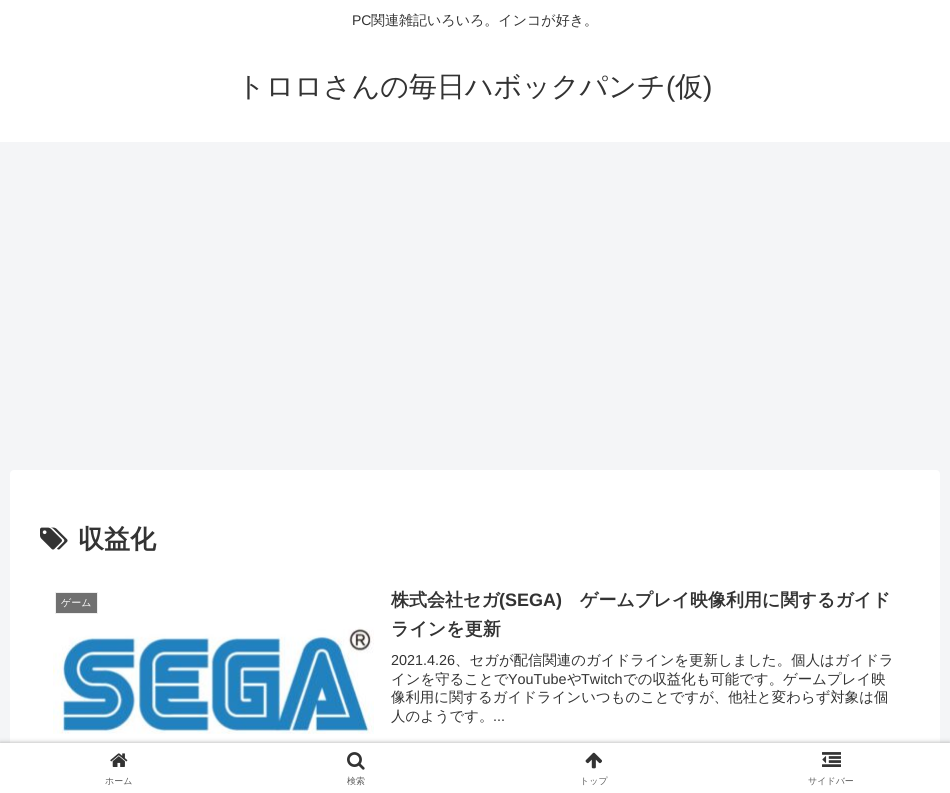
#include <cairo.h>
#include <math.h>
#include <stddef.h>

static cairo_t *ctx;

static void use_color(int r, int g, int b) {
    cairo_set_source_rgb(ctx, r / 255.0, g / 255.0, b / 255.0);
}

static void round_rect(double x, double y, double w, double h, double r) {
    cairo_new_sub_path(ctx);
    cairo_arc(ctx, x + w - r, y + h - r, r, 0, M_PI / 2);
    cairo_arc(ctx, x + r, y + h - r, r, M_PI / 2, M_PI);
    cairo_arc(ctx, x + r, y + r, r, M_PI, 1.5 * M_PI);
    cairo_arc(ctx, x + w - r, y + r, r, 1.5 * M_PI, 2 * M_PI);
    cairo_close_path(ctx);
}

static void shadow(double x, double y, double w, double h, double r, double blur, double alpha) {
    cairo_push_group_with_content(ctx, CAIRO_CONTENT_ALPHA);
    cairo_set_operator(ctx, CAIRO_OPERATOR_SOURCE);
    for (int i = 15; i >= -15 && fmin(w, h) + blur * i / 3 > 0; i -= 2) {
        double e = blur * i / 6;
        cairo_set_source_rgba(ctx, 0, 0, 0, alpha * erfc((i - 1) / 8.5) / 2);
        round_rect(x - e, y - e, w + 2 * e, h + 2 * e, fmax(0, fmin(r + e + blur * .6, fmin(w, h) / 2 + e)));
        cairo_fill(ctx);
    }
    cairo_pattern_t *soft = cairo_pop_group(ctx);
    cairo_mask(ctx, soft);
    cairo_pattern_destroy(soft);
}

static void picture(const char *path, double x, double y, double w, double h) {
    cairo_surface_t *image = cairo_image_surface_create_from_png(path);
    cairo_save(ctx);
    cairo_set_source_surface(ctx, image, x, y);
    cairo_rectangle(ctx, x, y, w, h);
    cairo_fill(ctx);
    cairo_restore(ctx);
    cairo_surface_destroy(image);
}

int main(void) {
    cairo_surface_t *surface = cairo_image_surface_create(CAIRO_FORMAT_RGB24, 950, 793);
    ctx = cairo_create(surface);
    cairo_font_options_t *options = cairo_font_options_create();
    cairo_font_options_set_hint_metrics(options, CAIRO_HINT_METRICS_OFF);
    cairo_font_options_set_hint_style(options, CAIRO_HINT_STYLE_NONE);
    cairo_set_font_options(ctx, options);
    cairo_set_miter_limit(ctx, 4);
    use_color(244, 245, 247);
    cairo_paint(ctx);
    use_color(255, 255, 255);
    cairo_rectangle(ctx, 0, 0, 950, 142);
    cairo_fill(ctx);
    cairo_select_font_face(ctx, "Liberation Sans", CAIRO_FONT_SLANT_NORMAL, CAIRO_FONT_WEIGHT_NORMAL);
    cairo_set_font_size(ctx, 14);
    use_color(51, 51, 51);
    cairo_move_to(ctx, 352, 25);
    cairo_show_text(ctx, "PC");
    cairo_select_font_face(ctx, "WenQuanYi Zen Hei Medium", CAIRO_FONT_SLANT_NORMAL, CAIRO_FONT_WEIGHT_NORMAL);
    cairo_move_to(ctx, 371, 25);
    cairo_show_text(ctx, "関連雑記いろいろ。インコが好き。");
    cairo_set_font_size(ctx, 28);
    cairo_move_to(ctx, 237, 96);
    cairo_show_text(ctx, "トロロさんの毎日ハボックパンチ");
    cairo_select_font_face(ctx, "Liberation Sans", CAIRO_FONT_SLANT_NORMAL, CAIRO_FONT_WEIGHT_NORMAL);
    cairo_move_to(ctx, 666, 96);
    cairo_show_text(ctx, "(");
    cairo_select_font_face(ctx, "WenQuanYi Zen Hei Medium", CAIRO_FONT_SLANT_NORMAL, CAIRO_FONT_WEIGHT_NORMAL);
    cairo_move_to(ctx, 675, 96);
    cairo_show_text(ctx, "仮");
    cairo_select_font_face(ctx, "Liberation Sans", CAIRO_FONT_SLANT_NORMAL, CAIRO_FONT_WEIGHT_NORMAL);
    cairo_move_to(ctx, 703, 96);
    cairo_show_text(ctx, ")");
    use_color(255, 255, 255);
    round_rect(10, 470, 930, 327, 4);
    cairo_fill(ctx);
    picture("img1.png", 40, 527, 28, 23);
    cairo_select_font_face(ctx, "WenQuanYi Zen Hei", CAIRO_FONT_SLANT_NORMAL, CAIRO_FONT_WEIGHT_BOLD);
    cairo_set_font_size(ctx, 26);
    use_color(51, 51, 51);
    cairo_move_to(ctx, 78, 548);
    cairo_show_text(ctx, "収益化");
    use_color(112, 112, 112);
    cairo_rectangle(ctx, 55.5, 592.5, 42, 21);
    cairo_fill_preserve(ctx);
    use_color(238, 238, 238);
    cairo_set_line_width(ctx, 1);
    cairo_stroke(ctx);
    cairo_select_font_face(ctx, "WenQuanYi Zen Hei Medium", CAIRO_FONT_SLANT_NORMAL, CAIRO_FONT_WEIGHT_NORMAL);
    cairo_set_font_size(ctx, 10);
    use_color(255, 255, 255);
    cairo_move_to(ctx, 61, 606);
    cairo_show_text(ctx, "ゲーム");
    picture("img2.png", 53, 627, 321, 107);
    cairo_select_font_face(ctx, "WenQuanYi Zen Hei", CAIRO_FONT_SLANT_NORMAL, CAIRO_FONT_WEIGHT_BOLD);
    cairo_set_font_size(ctx, 18);
    use_color(51, 51, 51);
    cairo_move_to(ctx, 391, 606);
    cairo_show_text(ctx, "株式会社セガ");
    cairo_select_font_face(ctx, "Liberation Sans", CAIRO_FONT_SLANT_NORMAL, CAIRO_FONT_WEIGHT_BOLD);
    cairo_move_to(ctx, 499, 606);
    cairo_show_text(ctx, "(SEGA)");
    cairo_select_font_face(ctx, "WenQuanYi Zen Hei", CAIRO_FONT_SLANT_NORMAL, CAIRO_FONT_WEIGHT_BOLD);
    cairo_move_to(ctx, 580, 606);
    cairo_show_text(ctx, "ゲームプレイ映像利用に関するガイド");
    cairo_move_to(ctx, 391, 635);
    cairo_show_text(ctx, "ラインを更新");
    cairo_select_font_face(ctx, "Liberation Sans", CAIRO_FONT_SLANT_NORMAL, CAIRO_FONT_WEIGHT_NORMAL);
    cairo_set_font_size(ctx, 14.4);
    cairo_move_to(ctx, 391, 665);
    cairo_show_text(ctx, "2021.4.26");
    cairo_select_font_face(ctx, "WenQuanYi Zen Hei Medium", CAIRO_FONT_SLANT_NORMAL, CAIRO_FONT_WEIGHT_NORMAL);
    cairo_move_to(ctx, 455, 665);
    cairo_show_text(ctx, "、セガが配信関連のガイドラインを更新しました。個人はガイドラ");
    cairo_move_to(ctx, 391, 684);
    cairo_show_text(ctx, "インを守ることで");
    cairo_select_font_face(ctx, "Liberation Sans", CAIRO_FONT_SLANT_NORMAL, CAIRO_FONT_WEIGHT_NORMAL);
    cairo_move_to(ctx, 508, 684);
    cairo_show_text(ctx, "YouTube");
    cairo_select_font_face(ctx, "WenQuanYi Zen Hei Medium", CAIRO_FONT_SLANT_NORMAL, CAIRO_FONT_WEIGHT_NORMAL);
    cairo_move_to(ctx, 567, 684);
    cairo_show_text(ctx, "や");
    cairo_select_font_face(ctx, "Liberation Sans", CAIRO_FONT_SLANT_NORMAL, CAIRO_FONT_WEIGHT_NORMAL);
    cairo_move_to(ctx, 581, 684);
    cairo_show_text(ctx, "Twitch");
    cairo_select_font_face(ctx, "WenQuanYi Zen Hei Medium", CAIRO_FONT_SLANT_NORMAL, CAIRO_FONT_WEIGHT_NORMAL);
    cairo_move_to(ctx, 623, 684);
    cairo_show_text(ctx, "での収益化も可能です。ゲームプレイ映");
    cairo_move_to(ctx, 391, 702);
    cairo_show_text(ctx, "像利用に関するガイドラインいつものことですが、他社と変わらず対象は個");
    cairo_move_to(ctx, 391, 721);
    cairo_show_text(ctx, "人のようです。");
    cairo_select_font_face(ctx, "Liberation Sans", CAIRO_FONT_SLANT_NORMAL, CAIRO_FONT_WEIGHT_NORMAL);
    cairo_move_to(ctx, 493, 721);
    cairo_show_text(ctx, "...");
    use_color(169, 169, 169);
    shadow(0, 743, 950, 50, 0, 2.5, 1);
    use_color(255, 255, 255);
    cairo_rectangle(ctx, 0, 743, 950, 50);
    cairo_fill(ctx);
    picture("img3.png", 110, 753, 18, 14);
    cairo_select_font_face(ctx, "WenQuanYi Zen Hei Medium", CAIRO_FONT_SLANT_NORMAL, CAIRO_FONT_WEIGHT_NORMAL);
    cairo_set_font_size(ctx, 9);
    use_color(92, 92, 92);
    cairo_move_to(ctx, 105, 784);
    cairo_show_text(ctx, "ホーム");
    picture("img4.png", 347, 752, 18, 18);
    cairo_move_to(ctx, 347, 784);
    cairo_show_text(ctx, "検索");
    picture("img5.png", 585, 752, 17, 17);
    cairo_move_to(ctx, 580, 784);
    cairo_show_text(ctx, "トップ");
    picture("img6.png", 822, 752, 19, 15);
    cairo_move_to(ctx, 808, 784);
    cairo_show_text(ctx, "サイドバー");
    cairo_surface_write_to_png(surface, "result.png");
    cairo_font_options_destroy(options);
    cairo_destroy(ctx);
    cairo_surface_destroy(surface);
    return 0;
}
